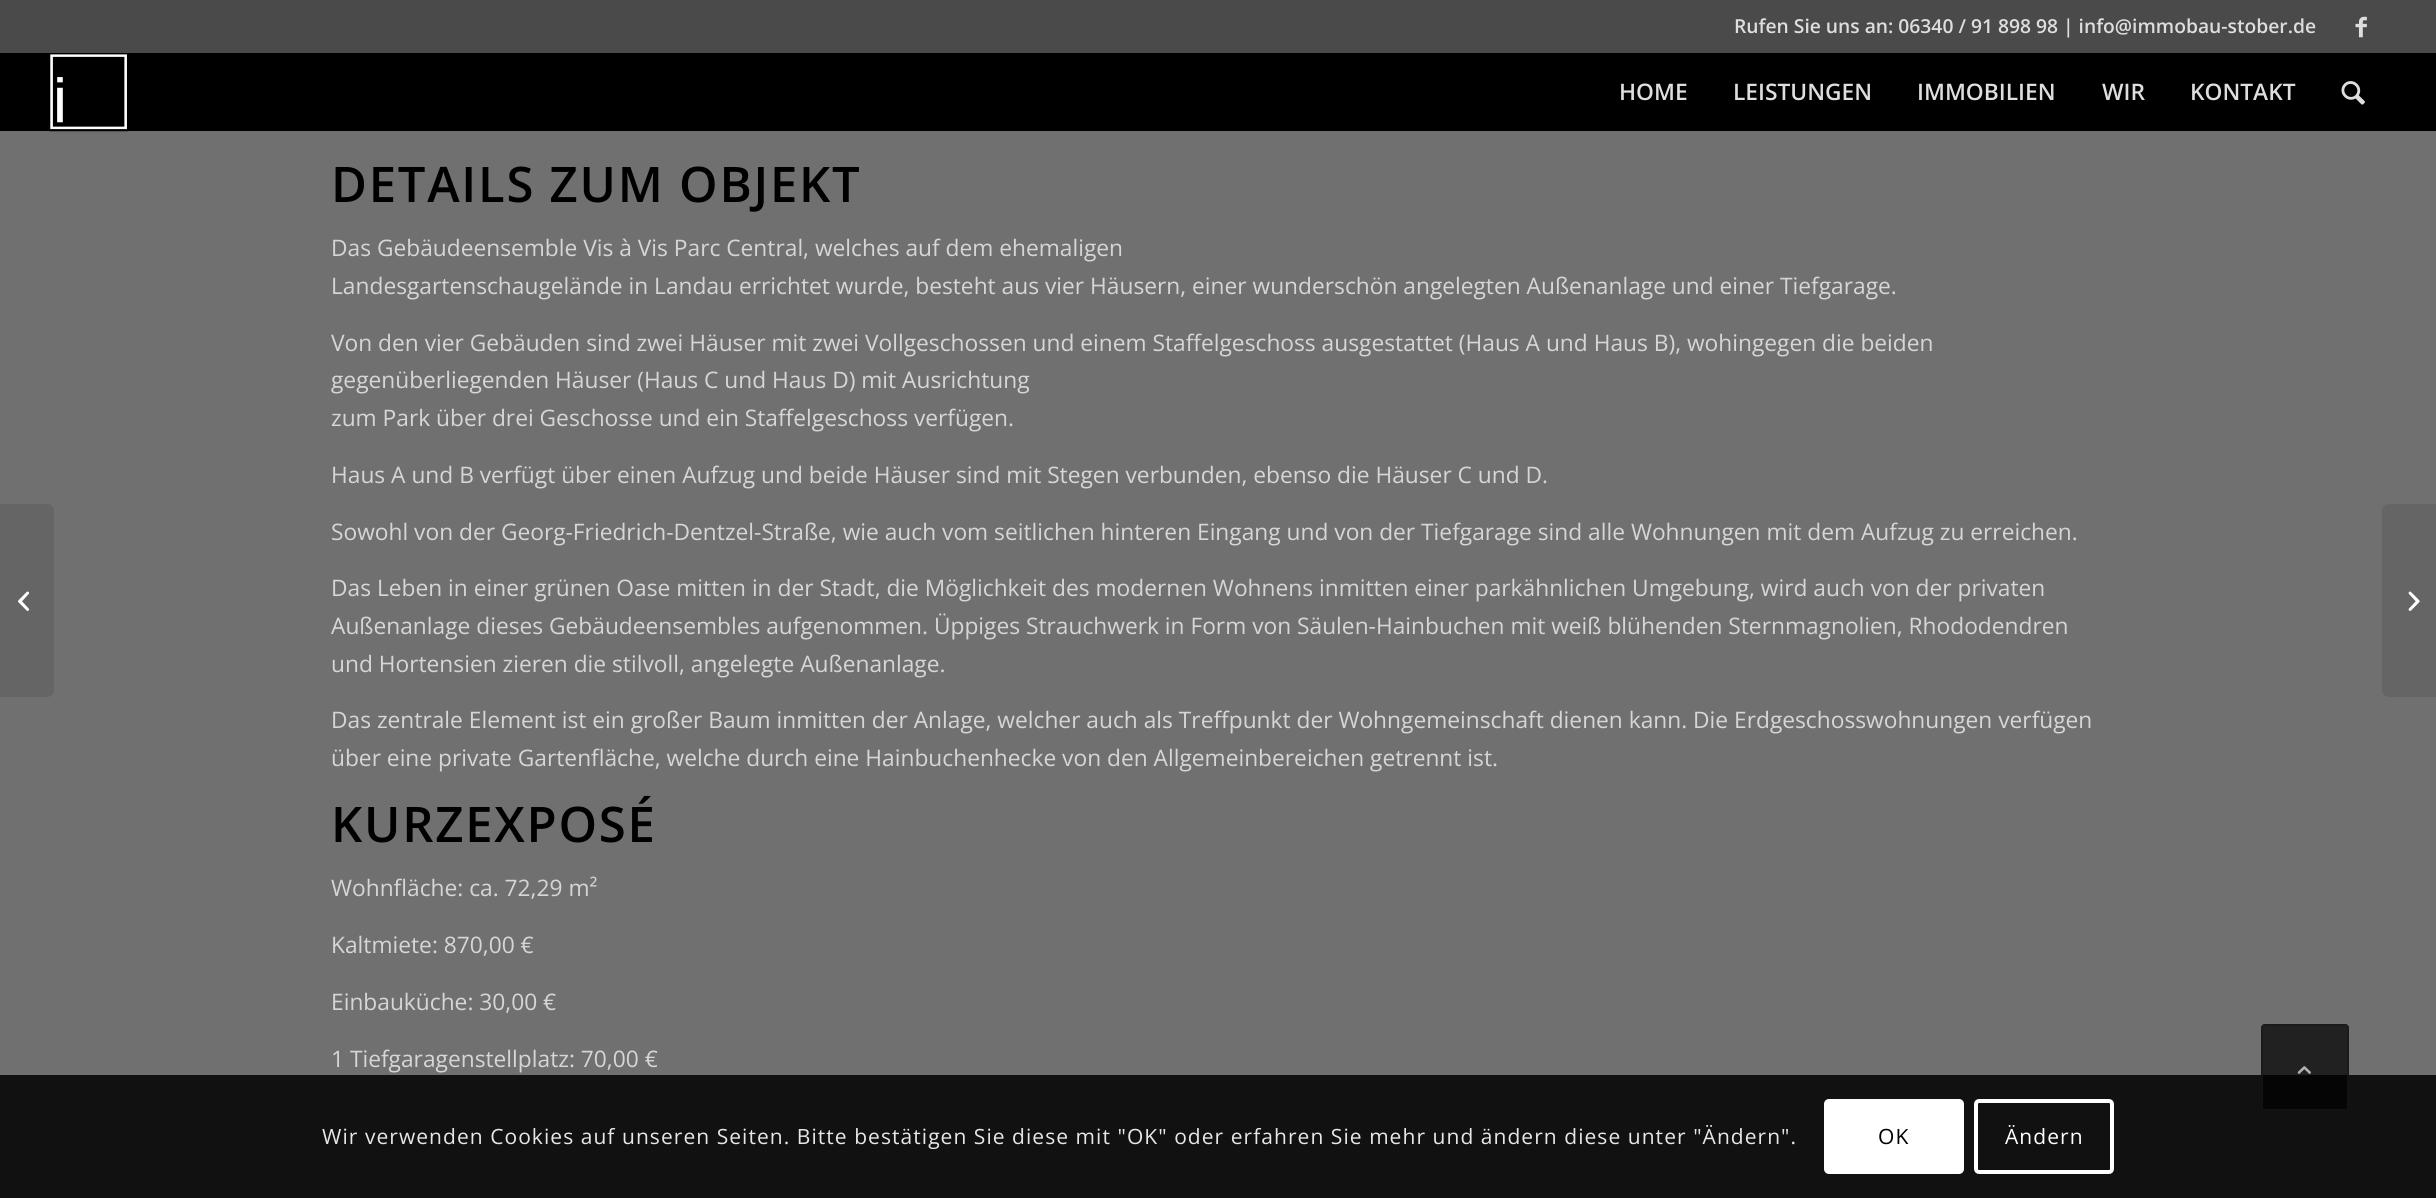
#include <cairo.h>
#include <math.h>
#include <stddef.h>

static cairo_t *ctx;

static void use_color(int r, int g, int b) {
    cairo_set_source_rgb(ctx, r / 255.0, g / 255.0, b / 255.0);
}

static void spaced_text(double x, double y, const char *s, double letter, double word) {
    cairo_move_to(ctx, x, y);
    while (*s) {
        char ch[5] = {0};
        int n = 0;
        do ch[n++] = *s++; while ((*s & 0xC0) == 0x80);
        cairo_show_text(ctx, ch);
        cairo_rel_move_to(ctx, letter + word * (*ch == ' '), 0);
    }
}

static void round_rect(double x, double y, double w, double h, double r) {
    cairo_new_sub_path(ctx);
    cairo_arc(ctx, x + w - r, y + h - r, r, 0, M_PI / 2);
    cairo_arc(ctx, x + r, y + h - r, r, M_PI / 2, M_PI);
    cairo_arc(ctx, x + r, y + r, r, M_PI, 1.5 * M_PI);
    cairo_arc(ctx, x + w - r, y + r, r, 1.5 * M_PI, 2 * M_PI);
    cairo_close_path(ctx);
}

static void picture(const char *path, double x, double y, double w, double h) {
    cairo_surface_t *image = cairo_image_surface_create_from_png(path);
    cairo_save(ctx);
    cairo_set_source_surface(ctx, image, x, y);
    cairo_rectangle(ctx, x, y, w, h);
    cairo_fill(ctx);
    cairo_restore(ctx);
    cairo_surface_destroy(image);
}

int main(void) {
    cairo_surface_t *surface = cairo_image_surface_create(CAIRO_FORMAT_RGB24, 2436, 1198);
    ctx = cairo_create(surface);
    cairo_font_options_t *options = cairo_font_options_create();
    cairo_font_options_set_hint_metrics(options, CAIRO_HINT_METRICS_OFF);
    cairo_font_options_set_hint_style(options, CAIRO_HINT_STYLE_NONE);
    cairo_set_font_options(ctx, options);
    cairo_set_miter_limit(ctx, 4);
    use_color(112, 112, 112);
    cairo_paint(ctx);
    use_color(74, 74, 74);
    cairo_rectangle(ctx, 0, 0, 2436, 53);
    cairo_fill(ctx);
    cairo_select_font_face(ctx, "Open Sans SemiBold", CAIRO_FONT_SLANT_NORMAL, CAIRO_FONT_WEIGHT_NORMAL);
    cairo_set_font_size(ctx, 19.25);
    use_color(222, 222, 222);
    cairo_move_to(ctx, 1734, 33);
    cairo_show_text(ctx, "Rufen Sie uns an: 06340 / 91 898 98 | info@immobau-stober.de");
    picture("img1.png", 2355, 16, 12, 22);
    use_color(0, 0, 0);
    cairo_rectangle(ctx, 0, 53, 2436, 78);
    cairo_fill(ctx);
    picture("img2.png", 49, 54, 79, 78);
    cairo_set_font_size(ctx, 22.75);
    use_color(222, 222, 222);
    cairo_move_to(ctx, 1619, 100);
    cairo_show_text(ctx, "HOME");
    cairo_move_to(ctx, 1733, 100);
    cairo_show_text(ctx, "LEISTUNGEN");
    cairo_move_to(ctx, 1917, 100);
    cairo_show_text(ctx, "IMMOBILIEN");
    cairo_move_to(ctx, 2102, 100);
    cairo_show_text(ctx, "WIR");
    cairo_move_to(ctx, 2190, 100);
    cairo_show_text(ctx, "KONTAKT");
    picture("img3.png", 2341, 81, 24, 24);
    use_color(101, 101, 101);
    cairo_new_path(ctx);
    cairo_move_to(ctx, 0, 504);
    cairo_line_to(ctx, 47, 504);
    cairo_curve_to(ctx, 51, 504, 54, 507, 54, 511);
    cairo_line_to(ctx, 54, 690);
    cairo_curve_to(ctx, 54, 694, 51, 697, 47, 697);
    cairo_line_to(ctx, 0, 697);
    cairo_close_path(ctx);
    cairo_fill(ctx);
    picture("img4.png", 18, 591, 12, 20);
    use_color(17, 17, 17);
    cairo_rectangle(ctx, 0, 1075, 2436, 123);
    cairo_fill(ctx);
    cairo_set_font_size(ctx, 49);
    use_color(0, 0, 0);
    spaced_text(331, 202, "DETAILS ZUM OBJEKT", 1.75, 0);
    cairo_select_font_face(ctx, "Open Sans", CAIRO_FONT_SLANT_NORMAL, CAIRO_FONT_WEIGHT_NORMAL);
    cairo_set_font_size(ctx, 22.75);
    use_color(214, 214, 214);
    cairo_move_to(ctx, 331, 256);
    cairo_show_text(ctx, "Das Gebäudeensemble Vis à Vis Parc Central, welches auf dem ehemaligen");
    cairo_move_to(ctx, 331, 294);
    cairo_show_text(ctx, "Landesgartenschaugelände in Landau errichtet wurde, besteht aus vier Häusern, einer wunderschön angelegten Außenanlage und einer Tiefgarage.");
    cairo_move_to(ctx, 331, 351);
    cairo_show_text(ctx, "Von den vier Gebäuden sind zwei Häuser mit zwei Vollgeschossen und einem Staffelgeschoss ausgestattet (Haus A und Haus B), wohingegen die beiden");
    cairo_move_to(ctx, 331, 388);
    cairo_show_text(ctx, "gegenüberliegenden Häuser (Haus C und Haus D) mit Ausrichtung");
    cairo_move_to(ctx, 331, 426);
    cairo_show_text(ctx, "zum Park über drei Geschosse und ein Staffelgeschoss verfügen.");
    cairo_move_to(ctx, 331, 483);
    cairo_show_text(ctx, "Haus A und B verfügt über einen Aufzug und beide Häuser sind mit Stegen verbunden, ebenso die Häuser C und D.");
    cairo_move_to(ctx, 331, 540);
    cairo_show_text(ctx, "Sowohl von der Georg-Friedrich-Dentzel-Straße, wie auch vom seitlichen hinteren Eingang und von der Tiefgarage sind alle Wohnungen mit dem Aufzug zu erreichen.");
    cairo_move_to(ctx, 331, 596);
    cairo_show_text(ctx, "Das Leben in einer grünen Oase mitten in der Stadt, die Möglichkeit des modernen Wohnens inmitten einer parkähnlichen Umgebung, wird auch von der privaten");
    cairo_move_to(ctx, 331, 634);
    cairo_show_text(ctx, "Außenanlage dieses Gebäudeensembles aufgenommen. Üppiges Strauchwerk in Form von Säulen-Hainbuchen mit weiß blühenden Sternmagnolien, Rhododendren");
    cairo_move_to(ctx, 331, 672);
    cairo_show_text(ctx, "und Hortensien zieren die stilvoll, angelegte Außenanlage.");
    cairo_move_to(ctx, 331, 728);
    cairo_show_text(ctx, "Das zentrale Element ist ein großer Baum inmitten der Anlage, welcher auch als Treffpunkt der Wohngemeinschaft dienen kann. Die Erdgeschosswohnungen verfügen");
    cairo_move_to(ctx, 331, 766);
    cairo_show_text(ctx, "über eine private Gartenfläche, welche durch eine Hainbuchenhecke von den Allgemeinbereichen getrennt ist.");
    cairo_select_font_face(ctx, "Open Sans SemiBold", CAIRO_FONT_SLANT_NORMAL, CAIRO_FONT_WEIGHT_NORMAL);
    cairo_set_font_size(ctx, 49);
    use_color(0, 0, 0);
    spaced_text(331, 842, "KURZEXPOSÉ", 1.75, 0);
    cairo_select_font_face(ctx, "Open Sans", CAIRO_FONT_SLANT_NORMAL, CAIRO_FONT_WEIGHT_NORMAL);
    cairo_set_font_size(ctx, 22.75);
    use_color(214, 214, 214);
    cairo_move_to(ctx, 331, 896);
    cairo_show_text(ctx, "Wohnfläche: ca. 72,29 m²");
    cairo_move_to(ctx, 331, 953);
    cairo_show_text(ctx, "Kaltmiete: 870,00 €");
    cairo_move_to(ctx, 331, 1010);
    cairo_show_text(ctx, "Einbauküche: 30,00 €");
    cairo_move_to(ctx, 331, 1067);
    cairo_show_text(ctx, "1 Tiefgaragenstellplatz: 70,00 €");
    use_color(101, 101, 101);
    cairo_new_path(ctx);
    cairo_move_to(ctx, 2389, 504);
    cairo_line_to(ctx, 2436, 504);
    cairo_line_to(ctx, 2436, 697);
    cairo_line_to(ctx, 2389, 697);
    cairo_curve_to(ctx, 2385, 697, 2382, 694, 2382, 690);
    cairo_line_to(ctx, 2382, 511);
    cairo_curve_to(ctx, 2382, 507, 2385, 504, 2389, 504);
    cairo_close_path(ctx);
    cairo_fill(ctx);
    picture("img5.png", 2408, 591, 12, 20);
    cairo_set_source_rgba(ctx, 0, 0, 0, 0.7);
    round_rect(2261, 1024, 88, 87, 4);
    cairo_fill(ctx);
    round_rect(2262, 1025, 86, 85, 3);
    cairo_set_source_rgba(ctx, 0.098, 0.098, 0.098, 0.7);
    cairo_stroke(ctx);
    picture("img6.png", 2297, 1066, 14, 8);
    cairo_set_font_size(ctx, 21);
    use_color(231, 231, 231);
    spaced_text(322, 1144, "Wir verwenden Cookies auf unseren Seiten. Bitte bestätigen Sie diese mit \"OK\" oder erfahren Sie mehr und ändern diese unter \"Ändern\".", 1.05, 0);
    use_color(255, 255, 255);
    round_rect(1824, 1099, 140, 75, 5);
    cairo_fill(ctx);
    use_color(0, 0, 0);
    spaced_text(1878, 1144, "OK", 1.05, 0);
    round_rect(1976, 1101, 136, 71, 3);
    use_color(255, 255, 255);
    cairo_set_line_width(ctx, 4);
    cairo_stroke(ctx);
    spaced_text(2005, 1144, "Ändern", 1.05, 0);
    cairo_surface_write_to_png(surface, "result.png");
    cairo_font_options_destroy(options);
    cairo_destroy(ctx);
    cairo_surface_destroy(surface);
    return 0;
}
